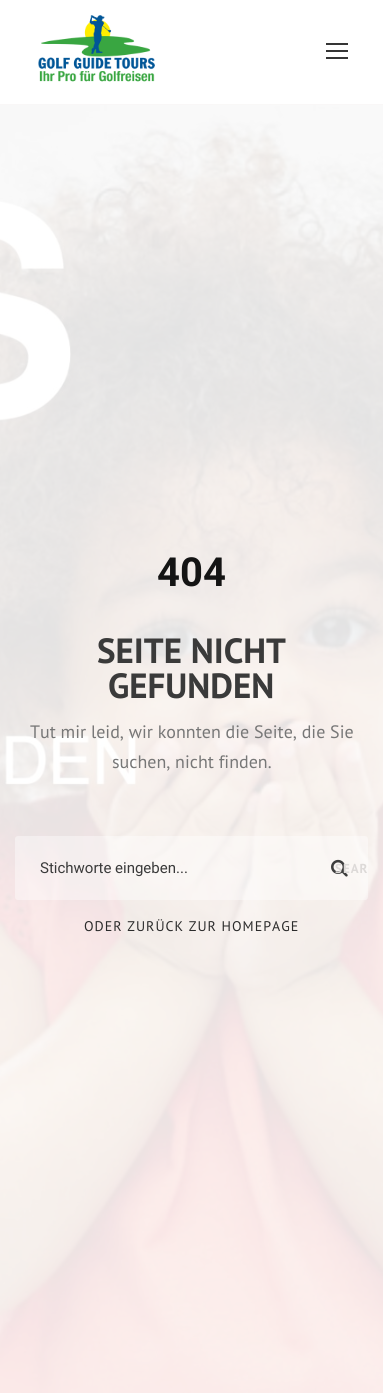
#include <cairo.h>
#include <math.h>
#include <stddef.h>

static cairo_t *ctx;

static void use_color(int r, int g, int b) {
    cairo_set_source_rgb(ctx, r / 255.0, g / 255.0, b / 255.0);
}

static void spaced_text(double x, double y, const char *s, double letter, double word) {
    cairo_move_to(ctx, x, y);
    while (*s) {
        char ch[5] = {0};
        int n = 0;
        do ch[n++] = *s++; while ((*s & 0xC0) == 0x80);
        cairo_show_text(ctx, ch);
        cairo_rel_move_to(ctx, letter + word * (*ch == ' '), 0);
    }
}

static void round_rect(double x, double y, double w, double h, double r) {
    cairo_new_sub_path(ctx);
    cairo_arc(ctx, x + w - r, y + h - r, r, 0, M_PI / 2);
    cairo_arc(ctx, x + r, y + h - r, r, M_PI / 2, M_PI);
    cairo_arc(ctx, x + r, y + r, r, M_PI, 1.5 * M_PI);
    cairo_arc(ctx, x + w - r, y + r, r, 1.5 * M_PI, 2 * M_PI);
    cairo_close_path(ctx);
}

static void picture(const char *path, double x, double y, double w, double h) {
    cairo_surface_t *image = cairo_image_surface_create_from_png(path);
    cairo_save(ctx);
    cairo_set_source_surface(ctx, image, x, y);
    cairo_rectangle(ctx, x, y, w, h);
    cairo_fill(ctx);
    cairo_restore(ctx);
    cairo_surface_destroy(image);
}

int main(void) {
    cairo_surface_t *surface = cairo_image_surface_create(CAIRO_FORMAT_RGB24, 383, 1393);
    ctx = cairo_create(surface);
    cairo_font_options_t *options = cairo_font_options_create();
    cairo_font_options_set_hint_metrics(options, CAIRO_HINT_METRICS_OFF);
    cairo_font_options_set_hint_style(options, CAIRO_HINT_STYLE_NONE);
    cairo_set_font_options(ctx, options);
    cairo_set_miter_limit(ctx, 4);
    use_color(255, 255, 255);
    cairo_paint(ctx);
    picture("img1.png", 38, 15, 117, 67);
    use_color(53, 53, 53);
    cairo_rectangle(ctx, 326, 43, 22, 2);
    cairo_fill(ctx);
    cairo_rectangle(ctx, 326, 50, 22, 2);
    cairo_fill(ctx);
    cairo_rectangle(ctx, 326, 57, 22, 2);
    cairo_fill(ctx);
    picture("img2.png", 0, 104, 383, 1289);
    cairo_select_font_face(ctx, "Roboto", CAIRO_FONT_SLANT_NORMAL, CAIRO_FONT_WEIGHT_BOLD);
    cairo_set_font_size(ctx, 40);
    use_color(20, 20, 20);
    cairo_move_to(ctx, 157, 586);
    cairo_show_text(ctx, "404");
    cairo_select_font_face(ctx, "PT Sans", CAIRO_FONT_SLANT_NORMAL, CAIRO_FONT_WEIGHT_BOLD);
    cairo_set_font_size(ctx, 35);
    use_color(58, 58, 58);
    cairo_move_to(ctx, 97, 663);
    cairo_show_text(ctx, "SEITE NICHT");
    cairo_move_to(ctx, 108, 698);
    cairo_show_text(ctx, "GEFUNDEN");
    cairo_select_font_face(ctx, "PT Sans", CAIRO_FONT_SLANT_NORMAL, CAIRO_FONT_WEIGHT_NORMAL);
    cairo_set_font_size(ctx, 18);
    use_color(119, 119, 119);
    cairo_move_to(ctx, 30, 738);
    cairo_show_text(ctx, "Tut mir leid, wir konnten die Seite, die Sie");
    cairo_move_to(ctx, 112, 768);
    cairo_show_text(ctx, "suchen, nicht finden.");
    cairo_set_source_rgba(ctx, 1, 1, 1, 0.4);
    round_rect(15, 836, 353, 64, 3);
    cairo_fill(ctx);
    cairo_select_font_face(ctx, "Roboto", CAIRO_FONT_SLANT_NORMAL, CAIRO_FONT_WEIGHT_NORMAL);
    cairo_set_font_size(ctx, 15);
    use_color(58, 58, 58);
    cairo_move_to(ctx, 40, 873);
    cairo_show_text(ctx, "Stichworte eingeben...");
    picture("img3.png", 331, 859, 17, 18);
    cairo_select_font_face(ctx, "PT Sans", CAIRO_FONT_SLANT_NORMAL, CAIRO_FONT_WEIGHT_BOLD);
    cairo_set_font_size(ctx, 13);
    use_color(221, 218, 216);
    spaced_text(335, 873, "SEAR", 1, 0);
    cairo_select_font_face(ctx, "PT Sans", CAIRO_FONT_SLANT_NORMAL, CAIRO_FONT_WEIGHT_NORMAL);
    cairo_set_font_size(ctx, 14);
    use_color(43, 43, 43);
    spaced_text(84, 931, "ODER ZURÜCK ZUR HOMEPAGE", 1, 0);
    cairo_surface_write_to_png(surface, "result.png");
    cairo_font_options_destroy(options);
    cairo_destroy(ctx);
    cairo_surface_destroy(surface);
    return 0;
}
